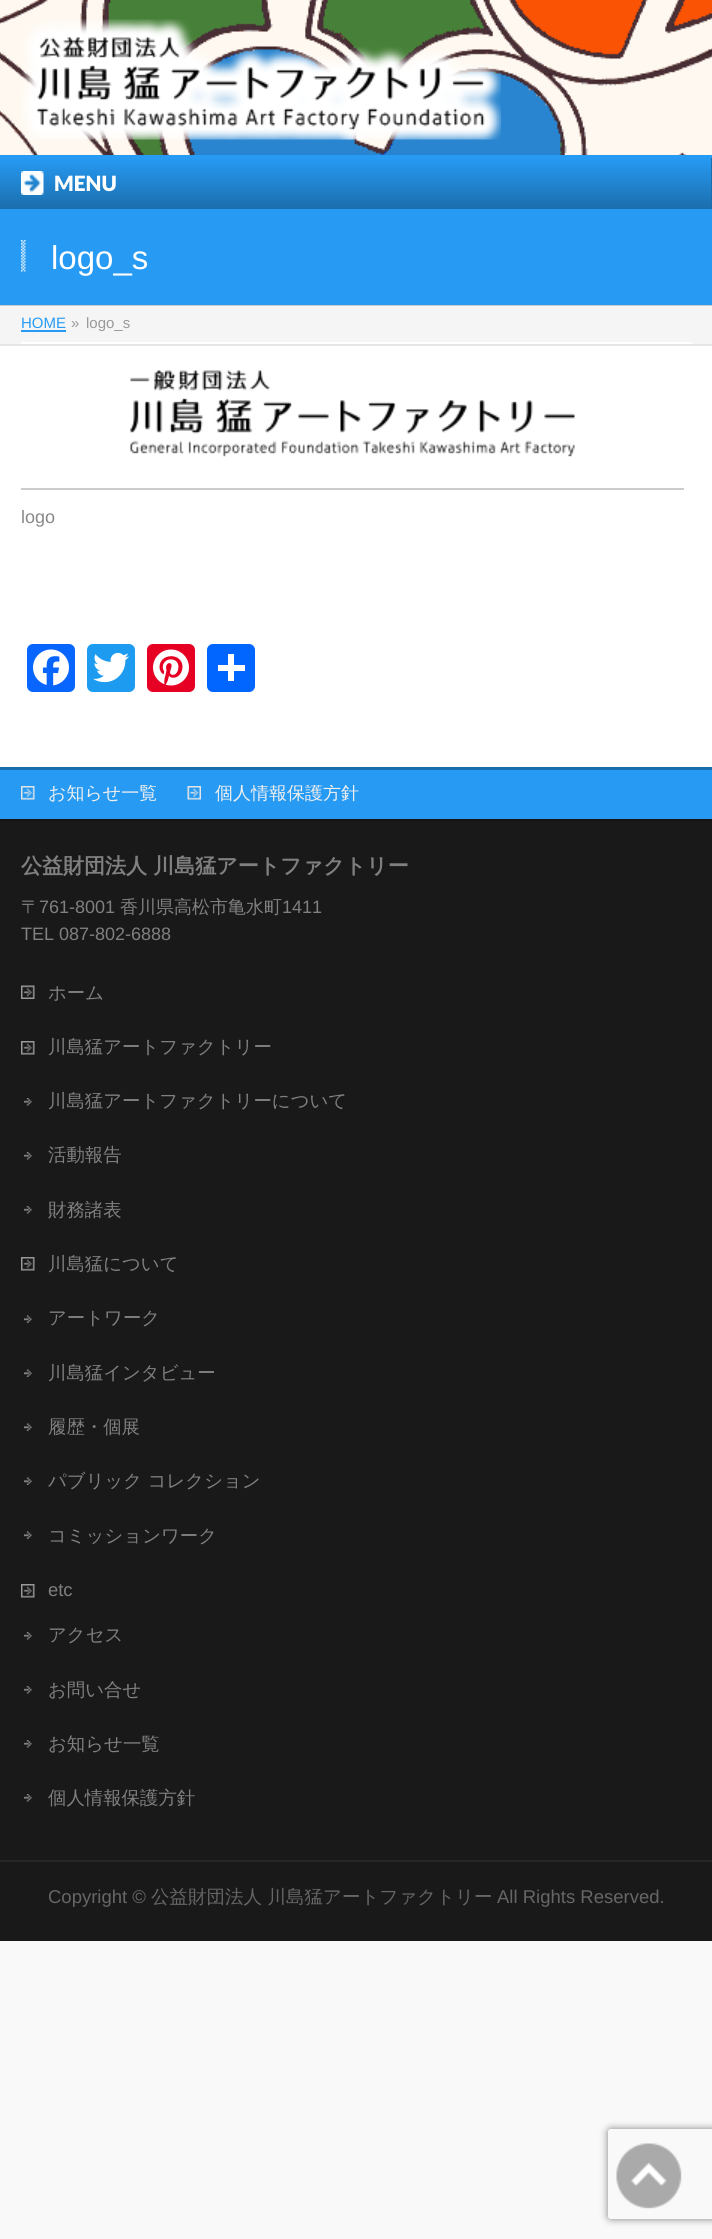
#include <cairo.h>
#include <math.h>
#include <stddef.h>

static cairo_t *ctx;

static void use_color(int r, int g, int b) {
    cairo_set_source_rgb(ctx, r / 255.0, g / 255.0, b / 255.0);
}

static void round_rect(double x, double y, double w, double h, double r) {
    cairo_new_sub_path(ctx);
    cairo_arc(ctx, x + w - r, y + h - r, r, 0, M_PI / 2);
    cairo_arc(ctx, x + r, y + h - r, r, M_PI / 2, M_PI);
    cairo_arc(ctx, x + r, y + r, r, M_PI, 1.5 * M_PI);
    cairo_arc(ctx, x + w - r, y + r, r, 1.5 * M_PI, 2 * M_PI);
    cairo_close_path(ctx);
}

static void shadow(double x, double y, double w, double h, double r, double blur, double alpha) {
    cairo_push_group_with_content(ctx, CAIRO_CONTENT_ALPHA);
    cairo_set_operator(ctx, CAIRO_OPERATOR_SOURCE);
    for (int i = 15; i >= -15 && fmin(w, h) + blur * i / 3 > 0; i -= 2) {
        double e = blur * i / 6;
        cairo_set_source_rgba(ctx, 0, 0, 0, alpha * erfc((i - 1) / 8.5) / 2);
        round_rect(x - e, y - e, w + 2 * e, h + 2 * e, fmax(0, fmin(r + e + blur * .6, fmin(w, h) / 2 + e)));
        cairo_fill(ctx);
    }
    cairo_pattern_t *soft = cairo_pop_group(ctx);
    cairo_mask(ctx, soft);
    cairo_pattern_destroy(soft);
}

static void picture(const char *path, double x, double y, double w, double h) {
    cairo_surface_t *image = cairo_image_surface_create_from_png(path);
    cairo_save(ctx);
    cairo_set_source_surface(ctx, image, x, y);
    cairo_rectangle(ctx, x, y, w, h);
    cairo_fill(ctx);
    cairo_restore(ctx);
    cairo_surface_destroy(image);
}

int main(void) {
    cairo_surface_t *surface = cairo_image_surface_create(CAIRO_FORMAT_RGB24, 712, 2239);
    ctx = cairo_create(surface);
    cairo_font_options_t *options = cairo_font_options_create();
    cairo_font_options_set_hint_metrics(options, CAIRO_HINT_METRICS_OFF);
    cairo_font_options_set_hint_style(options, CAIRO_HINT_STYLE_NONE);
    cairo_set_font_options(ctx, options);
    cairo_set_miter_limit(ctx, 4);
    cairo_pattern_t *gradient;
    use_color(249, 249, 249);
    cairo_paint(ctx);
    picture("img1.png", 0, 0, 712, 155);
    picture("img2.png", 21, 19, 480, 121);
    use_color(39, 155, 244);
    cairo_rectangle(ctx, 0, 155, 712, 3);
    cairo_fill(ctx);
    gradient = cairo_pattern_create_linear(356, 157, 356, 209);
    cairo_pattern_add_color_stop_rgba(gradient, 0, 0.153, 0.608, 0.957, 1);
    cairo_pattern_add_color_stop_rgba(gradient, 1, 0.106, 0.431, 0.678, 1);
    cairo_set_source(ctx, gradient);
    cairo_pattern_destroy(gradient);
    cairo_rectangle(ctx, 0, 158, 711, 51);
    cairo_fill(ctx);
    use_color(27, 110, 173);
    cairo_rectangle(ctx, 711, 158, 1, 51);
    cairo_fill(ctx);
    picture("img3.png", 21, 171, 23, 24);
    cairo_select_font_face(ctx, "Lato Black", CAIRO_FONT_SLANT_NORMAL, CAIRO_FONT_WEIGHT_NORMAL);
    cairo_set_font_size(ctx, 21);
    use_color(255, 255, 255);
    cairo_move_to(ctx, 54, 191);
    cairo_show_text(ctx, "MENU");
    use_color(39, 155, 244);
    cairo_rectangle(ctx, 0, 209, 712, 96);
    cairo_fill(ctx);
    use_color(204, 204, 204);
    cairo_rectangle(ctx, 0, 305, 712, 1);
    cairo_fill(ctx);
    picture("img4.png", 21, 240, 5, 32);
    cairo_select_font_face(ctx, "Liberation Sans", CAIRO_FONT_SLANT_NORMAL, CAIRO_FONT_WEIGHT_NORMAL);
    cairo_set_font_size(ctx, 33);
    use_color(255, 255, 255);
    cairo_move_to(ctx, 51, 269);
    cairo_show_text(ctx, "logo_s");
    use_color(245, 245, 245);
    cairo_rectangle(ctx, 0, 306, 712, 38);
    cairo_fill(ctx);
    use_color(229, 229, 229);
    cairo_rectangle(ctx, 0, 344, 712, 2);
    cairo_fill(ctx);
    use_color(255, 255, 255);
    cairo_rectangle(ctx, 21, 342, 671, 2);
    cairo_fill(ctx);
    cairo_set_font_size(ctx, 15);
    use_color(39, 155, 244);
    cairo_move_to(ctx, 21, 328);
    cairo_show_text(ctx, "HOME");
    cairo_rectangle(ctx, 21, 330, 45, 2);
    cairo_fill(ctx);
    use_color(153, 153, 153);
    cairo_move_to(ctx, 71, 328);
    cairo_show_text(ctx, "»");
    cairo_move_to(ctx, 86, 328);
    cairo_show_text(ctx, "logo_s");
    use_color(255, 255, 255);
    cairo_rectangle(ctx, 0, 346, 712, 421);
    cairo_fill(ctx);
    picture("img5.png", 130, 370, 445, 87);
    use_color(204, 204, 204);
    cairo_rectangle(ctx, 21, 488, 663, 2);
    cairo_fill(ctx);
    cairo_set_font_size(ctx, 18);
    use_color(136, 136, 136);
    cairo_move_to(ctx, 21, 523);
    cairo_show_text(ctx, "logo");
    use_color(8, 102, 255);
    round_rect(27, 644, 48, 48, 6);
    cairo_fill(ctx);
    picture("img6.png", 33, 649, 36, 37);
    use_color(29, 155, 240);
    round_rect(87, 644, 48, 48, 6);
    cairo_fill(ctx);
    picture("img7.png", 93, 652, 36, 31);
    use_color(230, 0, 35);
    round_rect(147, 644, 48, 48, 6);
    cairo_fill(ctx);
    picture("img8.png", 153, 649, 36, 37);
    use_color(1, 102, 255);
    round_rect(207, 644, 48, 48, 6);
    cairo_fill(ctx);
    use_color(255, 255, 255);
    cairo_rectangle(ctx, 228, 654, 6, 27);
    cairo_fill(ctx);
    cairo_rectangle(ctx, 218, 665, 27, 6);
    cairo_fill(ctx);
    use_color(39, 155, 244);
    cairo_rectangle(ctx, 0, 770, 712, 49);
    cairo_fill(ctx);
    use_color(27, 110, 173);
    cairo_rectangle(ctx, 0, 767, 712, 3);
    cairo_fill(ctx);
    picture("img9.png", 21, 786, 14, 14);
    cairo_save(ctx);
    cairo_rectangle(ctx, 21, 785, 671, 19);
    cairo_clip(ctx);
    cairo_select_font_face(ctx, "WenQuanYi Zen Hei Medium", CAIRO_FONT_SLANT_NORMAL, CAIRO_FONT_WEIGHT_NORMAL);
    use_color(239, 239, 239);
    cairo_move_to(ctx, 48, 799);
    cairo_show_text(ctx, "お知らせ一覧");
    cairo_restore(ctx);
    picture("img10.png", 187, 786, 14, 14);
    cairo_save(ctx);
    cairo_rectangle(ctx, 21, 785, 671, 19);
    cairo_clip(ctx);
    cairo_select_font_face(ctx, "WenQuanYi Zen Hei Medium", CAIRO_FONT_SLANT_NORMAL, CAIRO_FONT_WEIGHT_NORMAL);
    use_color(239, 239, 239);
    cairo_move_to(ctx, 215, 799);
    cairo_show_text(ctx, "個人情報保護方針");
    cairo_restore(ctx);
    use_color(25, 25, 25);
    cairo_rectangle(ctx, 0, 821, 712, 1039);
    cairo_fill(ctx);
    use_color(21, 21, 21);
    cairo_rectangle(ctx, 0, 819, 712, 2);
    cairo_fill(ctx);
    cairo_select_font_face(ctx, "WenQuanYi Zen Hei", CAIRO_FONT_SLANT_NORMAL, CAIRO_FONT_WEIGHT_BOLD);
    cairo_set_font_size(ctx, 21);
    use_color(128, 128, 128);
    cairo_move_to(ctx, 21, 873);
    cairo_show_text(ctx, "公益財団法人 川島猛アートファクトリー");
    cairo_select_font_face(ctx, "WenQuanYi Zen Hei Medium", CAIRO_FONT_SLANT_NORMAL, CAIRO_FONT_WEIGHT_NORMAL);
    cairo_set_font_size(ctx, 18);
    cairo_move_to(ctx, 21, 913);
    cairo_show_text(ctx, "〒");
    cairo_select_font_face(ctx, "Liberation Sans", CAIRO_FONT_SLANT_NORMAL, CAIRO_FONT_WEIGHT_NORMAL);
    cairo_move_to(ctx, 39, 913);
    cairo_show_text(ctx, "761-8001");
    cairo_select_font_face(ctx, "WenQuanYi Zen Hei Medium", CAIRO_FONT_SLANT_NORMAL, CAIRO_FONT_WEIGHT_NORMAL);
    cairo_move_to(ctx, 120, 913);
    cairo_show_text(ctx, "香川県高松市亀水町");
    cairo_select_font_face(ctx, "Liberation Sans", CAIRO_FONT_SLANT_NORMAL, CAIRO_FONT_WEIGHT_NORMAL);
    cairo_move_to(ctx, 282, 913);
    cairo_show_text(ctx, "1411");
    cairo_move_to(ctx, 21, 940);
    cairo_show_text(ctx, "TEL 087-802-6888");
    picture("img11.png", 21, 985, 14, 14);
    cairo_select_font_face(ctx, "WenQuanYi Zen Hei Medium", CAIRO_FONT_SLANT_NORMAL, CAIRO_FONT_WEIGHT_NORMAL);
    cairo_set_font_size(ctx, 18.4);
    cairo_move_to(ctx, 48, 999);
    cairo_show_text(ctx, "ホーム");
    picture("img12.png", 21, 1041, 14, 14);
    cairo_move_to(ctx, 48, 1053);
    cairo_show_text(ctx, "川島猛アートファクトリー");
    picture("img13.png", 24, 1098, 8, 8);
    cairo_move_to(ctx, 48, 1107);
    cairo_show_text(ctx, "川島猛アートファクトリーについて");
    picture("img13.png", 24, 1152, 8, 8);
    cairo_move_to(ctx, 48, 1161);
    cairo_show_text(ctx, "活動報告");
    picture("img13.png", 24, 1206, 8, 8);
    cairo_move_to(ctx, 48, 1216);
    cairo_show_text(ctx, "財務諸表");
    picture("img12.png", 21, 1257, 14, 14);
    cairo_move_to(ctx, 48, 1270);
    cairo_show_text(ctx, "川島猛について");
    picture("img14.png", 24, 1315, 8, 8);
    cairo_move_to(ctx, 48, 1324);
    cairo_show_text(ctx, "アートワーク");
    picture("img14.png", 24, 1369, 8, 8);
    cairo_move_to(ctx, 48, 1379);
    cairo_show_text(ctx, "川島猛インタビュー");
    picture("img14.png", 24, 1423, 8, 8);
    cairo_move_to(ctx, 48, 1433);
    cairo_show_text(ctx, "履歴・個展");
    picture("img14.png", 24, 1477, 8, 8);
    cairo_move_to(ctx, 48, 1487);
    cairo_show_text(ctx, "パブリック コレクション");
    picture("img14.png", 24, 1531, 8, 8);
    cairo_move_to(ctx, 48, 1542);
    cairo_show_text(ctx, "コミッションワーク");
    picture("img12.png", 21, 1584, 14, 14);
    cairo_select_font_face(ctx, "Liberation Sans", CAIRO_FONT_SLANT_NORMAL, CAIRO_FONT_WEIGHT_NORMAL);
    cairo_move_to(ctx, 48, 1596);
    cairo_show_text(ctx, "etc");
    picture("img13.png", 24, 1632, 8, 8);
    cairo_select_font_face(ctx, "WenQuanYi Zen Hei Medium", CAIRO_FONT_SLANT_NORMAL, CAIRO_FONT_WEIGHT_NORMAL);
    cairo_move_to(ctx, 48, 1641);
    cairo_show_text(ctx, "アクセス");
    picture("img13.png", 24, 1686, 8, 8);
    cairo_move_to(ctx, 48, 1696);
    cairo_show_text(ctx, "お問い合せ");
    picture("img13.png", 24, 1740, 8, 8);
    cairo_move_to(ctx, 48, 1750);
    cairo_show_text(ctx, "お知らせ一覧");
    picture("img13.png", 24, 1794, 8, 8);
    cairo_move_to(ctx, 48, 1804);
    cairo_show_text(ctx, "個人情報保護方針");
    use_color(25, 25, 25);
    cairo_rectangle(ctx, 0, 1862, 712, 79);
    cairo_fill(ctx);
    use_color(38, 38, 38);
    cairo_rectangle(ctx, 0, 1860, 712, 2);
    cairo_fill(ctx);
    cairo_select_font_face(ctx, "Liberation Sans", CAIRO_FONT_SLANT_NORMAL, CAIRO_FONT_WEIGHT_NORMAL);
    cairo_set_font_size(ctx, 18.5);
    use_color(102, 102, 102);
    cairo_move_to(ctx, 48, 1903);
    cairo_show_text(ctx, "Copyright ©");
    cairo_select_font_face(ctx, "WenQuanYi Zen Hei Medium", CAIRO_FONT_SLANT_NORMAL, CAIRO_FONT_WEIGHT_NORMAL);
    cairo_move_to(ctx, 151, 1903);
    cairo_show_text(ctx, "公益財団法人 川島猛アートファクトリー");
    cairo_select_font_face(ctx, "Liberation Sans", CAIRO_FONT_SLANT_NORMAL, CAIRO_FONT_WEIGHT_NORMAL);
    cairo_move_to(ctx, 497, 1903);
    cairo_show_text(ctx, "All Rights Reserved.");
    cairo_save(ctx);
    cairo_set_fill_rule(ctx, CAIRO_FILL_RULE_EVEN_ODD);
    cairo_new_path(ctx);
    cairo_move_to(ctx, 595, 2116);
    cairo_line_to(ctx, 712, 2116);
    cairo_line_to(ctx, 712, 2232);
    cairo_line_to(ctx, 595, 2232);
    cairo_close_path(ctx);
    cairo_move_to(ctx, 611, 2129);
    cairo_line_to(ctx, 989, 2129);
    cairo_curve_to(ctx, 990.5, 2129, 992, 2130.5, 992, 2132);
    cairo_line_to(ctx, 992, 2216);
    cairo_curve_to(ctx, 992, 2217.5, 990.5, 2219, 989, 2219);
    cairo_line_to(ctx, 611, 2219);
    cairo_curve_to(ctx, 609.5, 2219, 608, 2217.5, 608, 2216);
    cairo_line_to(ctx, 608, 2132);
    cairo_curve_to(ctx, 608, 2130.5, 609.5, 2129, 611, 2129);
    cairo_close_path(ctx);
    cairo_clip(ctx);
    use_color(128, 128, 128);
    shadow(608, 2129, 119, 90, 3, 4, 1);
    cairo_restore(ctx);
    picture("img15.png", 616, 2143, 66, 66);
    cairo_surface_write_to_png(surface, "result.png");
    cairo_font_options_destroy(options);
    cairo_destroy(ctx);
    cairo_surface_destroy(surface);
    return 0;
}
